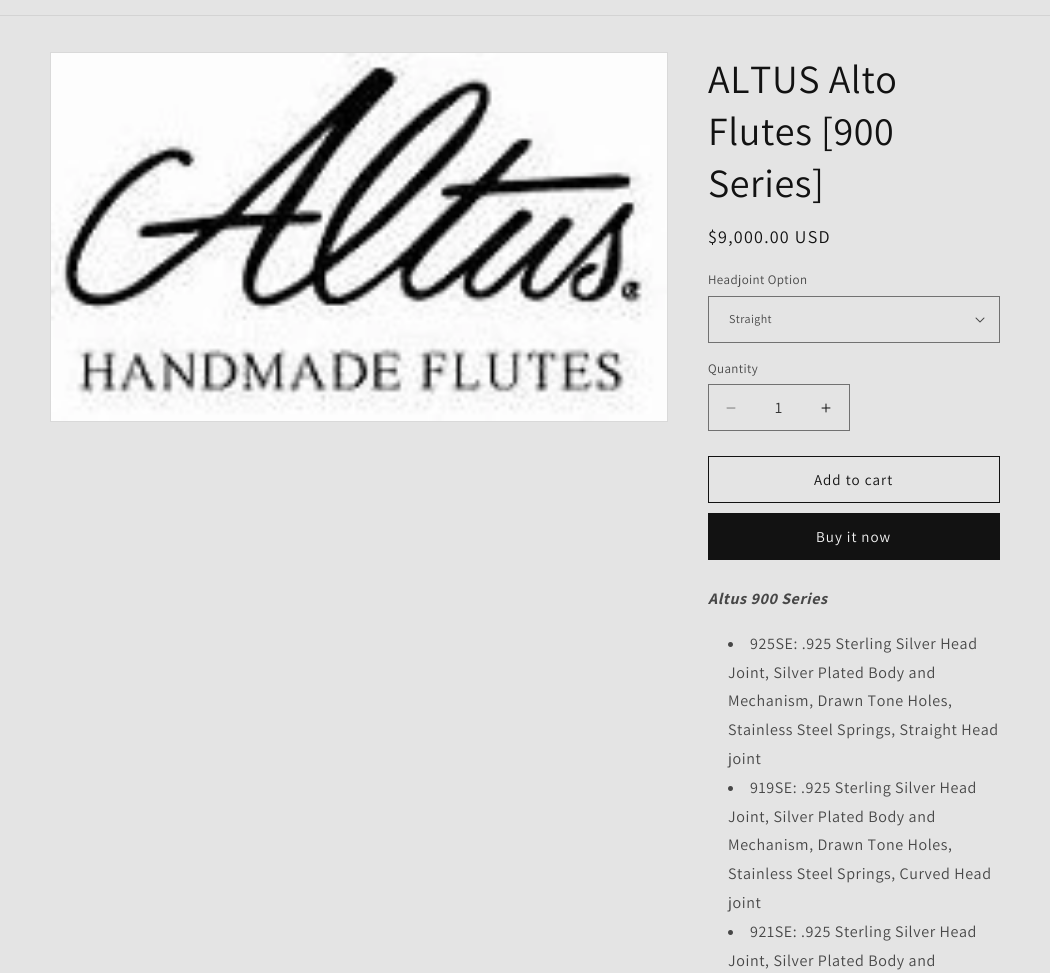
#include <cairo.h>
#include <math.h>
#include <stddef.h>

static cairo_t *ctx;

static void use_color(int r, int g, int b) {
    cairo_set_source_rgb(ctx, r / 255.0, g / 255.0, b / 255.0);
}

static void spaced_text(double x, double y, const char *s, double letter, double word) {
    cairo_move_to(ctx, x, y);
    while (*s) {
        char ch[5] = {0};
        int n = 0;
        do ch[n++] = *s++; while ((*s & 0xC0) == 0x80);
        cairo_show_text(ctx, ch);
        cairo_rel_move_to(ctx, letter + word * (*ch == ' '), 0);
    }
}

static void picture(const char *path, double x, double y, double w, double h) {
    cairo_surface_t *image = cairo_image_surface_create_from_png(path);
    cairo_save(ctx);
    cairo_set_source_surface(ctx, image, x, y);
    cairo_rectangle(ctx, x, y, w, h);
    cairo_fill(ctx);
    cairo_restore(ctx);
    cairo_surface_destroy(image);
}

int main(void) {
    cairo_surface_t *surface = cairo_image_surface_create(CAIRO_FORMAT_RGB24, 1050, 973);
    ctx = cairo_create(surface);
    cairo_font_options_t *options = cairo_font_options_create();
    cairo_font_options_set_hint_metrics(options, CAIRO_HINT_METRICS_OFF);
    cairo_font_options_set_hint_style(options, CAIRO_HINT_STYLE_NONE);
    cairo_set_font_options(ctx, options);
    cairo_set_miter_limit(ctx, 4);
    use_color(228, 228, 228);
    cairo_paint(ctx);
    use_color(211, 211, 211);
    cairo_rectangle(ctx, 0, 15, 1050, 1);
    cairo_fill(ctx);
    cairo_rectangle(ctx, 50.5, 52.5, 617, 369);
    use_color(217, 217, 217);
    cairo_set_line_width(ctx, 1);
    cairo_stroke(ctx);
    picture("img1.png", 51, 53, 616, 368);
    cairo_select_font_face(ctx, "Assistant", CAIRO_FONT_SLANT_NORMAL, CAIRO_FONT_WEIGHT_NORMAL);
    cairo_set_font_size(ctx, 40);
    use_color(18, 18, 18);
    spaced_text(708, 93, "ALTUS Alto", 0.6, 0);
    spaced_text(708, 145, "Flutes [900", 0.6, 0);
    spaced_text(708, 197, "Series]", 0.6, 0);
    cairo_set_font_size(ctx, 18);
    spaced_text(708, 243, "$9,000.00 USD", 1.25, 0);
    cairo_set_font_size(ctx, 13);
    use_color(71, 71, 71);
    spaced_text(708, 284, "Headjoint Option", 0.4, 0);
    picture("img2.png", 975, 317, 10, 6);
    cairo_rectangle(ctx, 708.5, 296.5, 291, 46);
    use_color(113, 113, 113);
    cairo_stroke(ctx);
    cairo_set_font_size(ctx, 12);
    use_color(71, 71, 71);
    spaced_text(729, 323, "Straight", 0.4, 0);
    cairo_set_font_size(ctx, 13);
    spaced_text(708, 373, "Quantity", 0.4, 0);
    picture("img3.png", 726, 407, 10, 2);
    picture("img4.png", 821, 403, 10, 10);
    cairo_rectangle(ctx, 708.5, 384.5, 141, 46);
    use_color(113, 113, 113);
    cairo_stroke(ctx);
    cairo_set_font_size(ctx, 16);
    use_color(50, 50, 50);
    cairo_move_to(ctx, 775, 413);
    cairo_show_text(ctx, "1");
    cairo_rectangle(ctx, 708.5, 456.5, 291, 46);
    use_color(18, 18, 18);
    cairo_stroke(ctx);
    cairo_set_font_size(ctx, 15);
    spaced_text(814, 485, "Add to cart", 1, 0);
    cairo_rectangle(ctx, 708, 513, 292, 47);
    cairo_fill(ctx);
    use_color(243, 243, 243);
    spaced_text(816, 542, "Buy it now", 1, 0);
    cairo_select_font_face(ctx, "Assistant", CAIRO_FONT_SLANT_ITALIC, CAIRO_FONT_WEIGHT_BOLD);
    cairo_set_font_size(ctx, 16);
    use_color(71, 71, 71);
    spaced_text(708, 604, "Altus 900 Series", 0.6, 0);
    cairo_new_path(ctx);
    cairo_arc(ctx, 730.5, 644.5, 2.5, 0, 2 * M_PI);
    cairo_fill(ctx);
    cairo_select_font_face(ctx, "Assistant", CAIRO_FONT_SLANT_NORMAL, CAIRO_FONT_WEIGHT_NORMAL);
    spaced_text(750, 649, "925SE: .925 Sterling Silver Head", 0.6, 0);
    spaced_text(728, 678, "Joint, Silver Plated Body and", 0.6, 0);
    spaced_text(728, 706, "Mechanism, Drawn Tone Holes,", 0.6, 0);
    spaced_text(728, 735, "Stainless Steel Springs, Straight Head", 0.6, 0);
    spaced_text(728, 764, "joint", 0.6, 0);
    cairo_new_path(ctx);
    cairo_arc(ctx, 730.5, 788.5, 2.5, 0, 2 * M_PI);
    cairo_fill(ctx);
    spaced_text(750, 793, "919SE: .925 Sterling Silver Head", 0.6, 0);
    spaced_text(728, 822, "Joint, Silver Plated Body and", 0.6, 0);
    spaced_text(728, 850, "Mechanism, Drawn Tone Holes,", 0.6, 0);
    spaced_text(728, 879, "Stainless Steel Springs, Curved Head", 0.6, 0);
    spaced_text(728, 908, "joint", 0.6, 0);
    cairo_new_path(ctx);
    cairo_arc(ctx, 730.5, 932.5, 2.5, 0, 2 * M_PI);
    cairo_fill(ctx);
    spaced_text(750, 937, "921SE: .925 Sterling Silver Head", 0.6, 0);
    spaced_text(728, 966, "Joint, Silver Plated Body and", 0.6, 0);
    cairo_surface_write_to_png(surface, "result.png");
    cairo_font_options_destroy(options);
    cairo_destroy(ctx);
    cairo_surface_destroy(surface);
    return 0;
}
